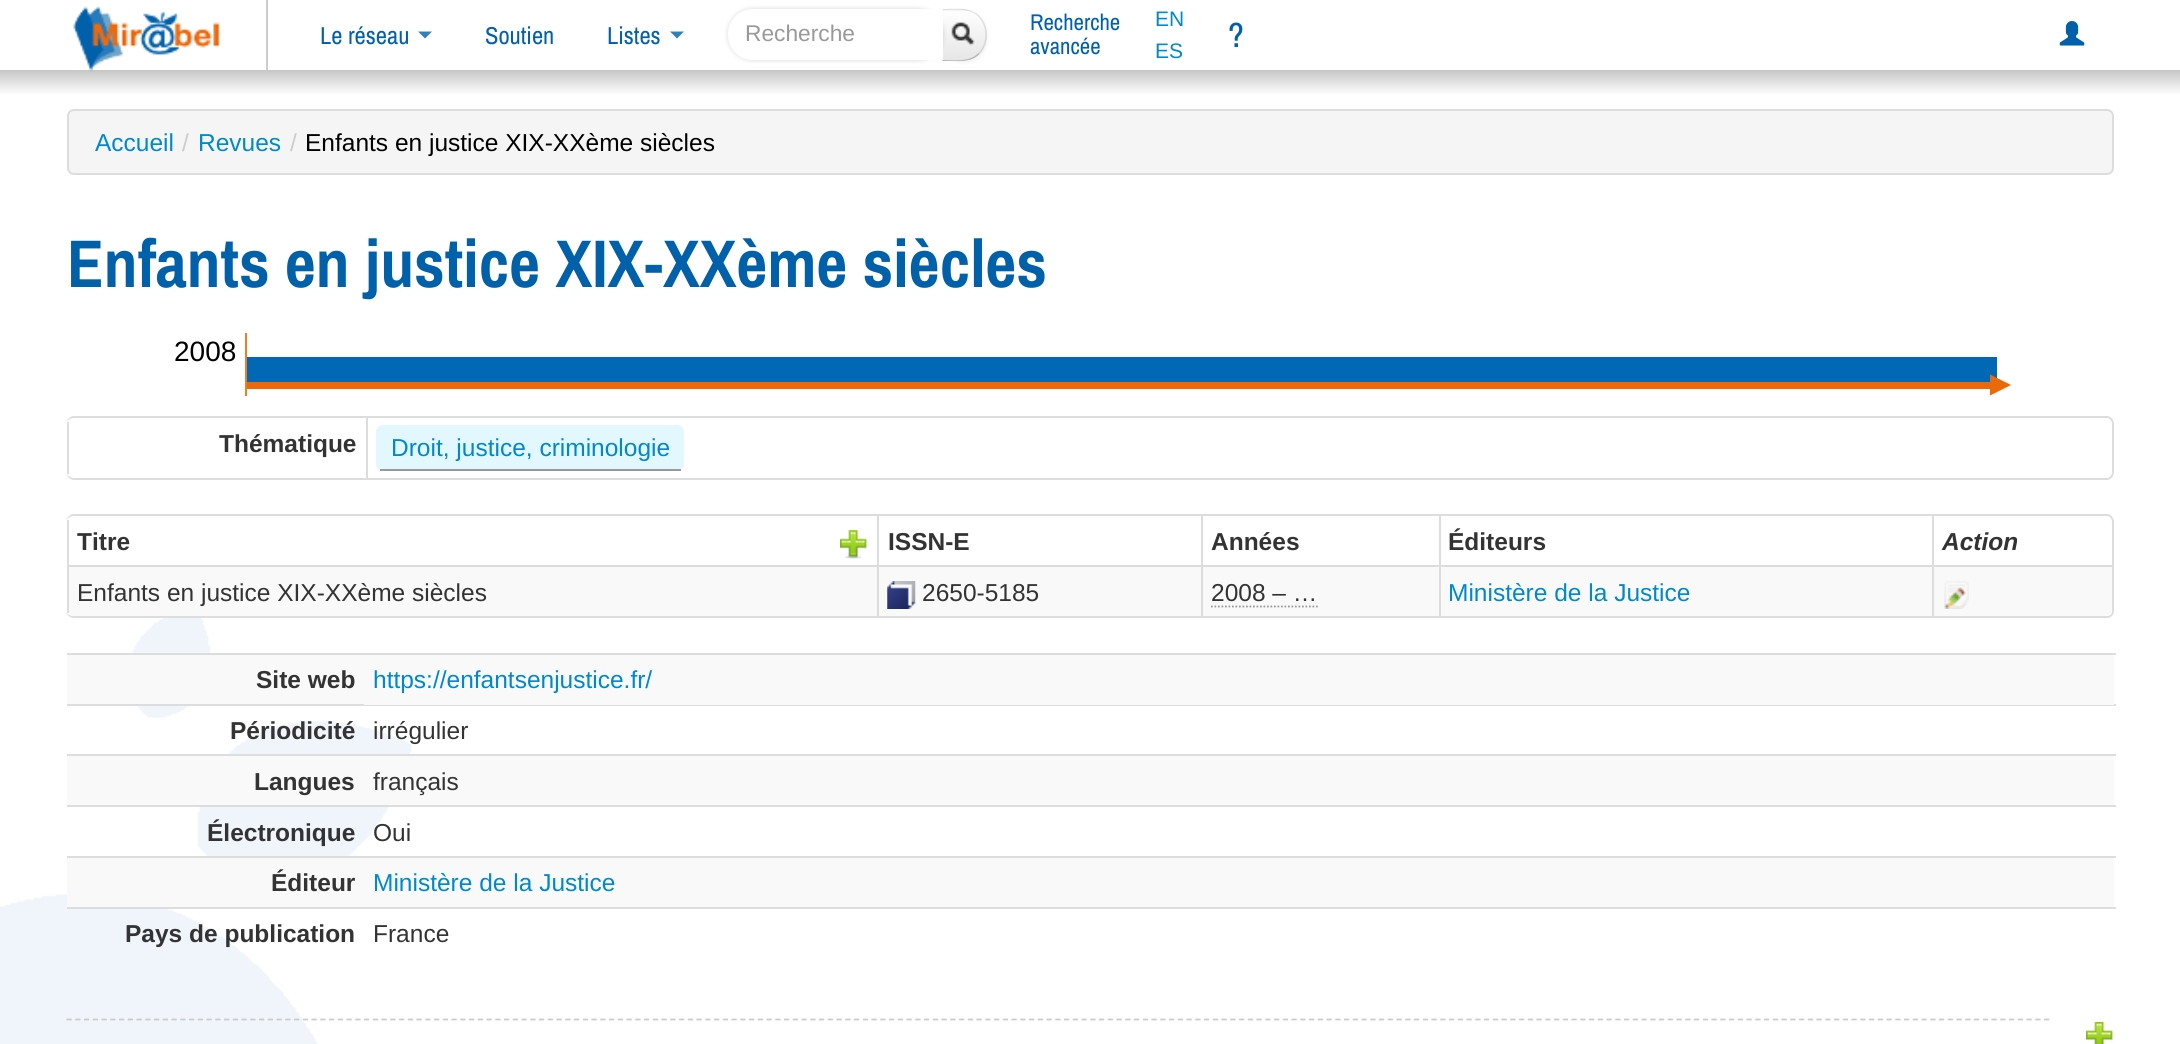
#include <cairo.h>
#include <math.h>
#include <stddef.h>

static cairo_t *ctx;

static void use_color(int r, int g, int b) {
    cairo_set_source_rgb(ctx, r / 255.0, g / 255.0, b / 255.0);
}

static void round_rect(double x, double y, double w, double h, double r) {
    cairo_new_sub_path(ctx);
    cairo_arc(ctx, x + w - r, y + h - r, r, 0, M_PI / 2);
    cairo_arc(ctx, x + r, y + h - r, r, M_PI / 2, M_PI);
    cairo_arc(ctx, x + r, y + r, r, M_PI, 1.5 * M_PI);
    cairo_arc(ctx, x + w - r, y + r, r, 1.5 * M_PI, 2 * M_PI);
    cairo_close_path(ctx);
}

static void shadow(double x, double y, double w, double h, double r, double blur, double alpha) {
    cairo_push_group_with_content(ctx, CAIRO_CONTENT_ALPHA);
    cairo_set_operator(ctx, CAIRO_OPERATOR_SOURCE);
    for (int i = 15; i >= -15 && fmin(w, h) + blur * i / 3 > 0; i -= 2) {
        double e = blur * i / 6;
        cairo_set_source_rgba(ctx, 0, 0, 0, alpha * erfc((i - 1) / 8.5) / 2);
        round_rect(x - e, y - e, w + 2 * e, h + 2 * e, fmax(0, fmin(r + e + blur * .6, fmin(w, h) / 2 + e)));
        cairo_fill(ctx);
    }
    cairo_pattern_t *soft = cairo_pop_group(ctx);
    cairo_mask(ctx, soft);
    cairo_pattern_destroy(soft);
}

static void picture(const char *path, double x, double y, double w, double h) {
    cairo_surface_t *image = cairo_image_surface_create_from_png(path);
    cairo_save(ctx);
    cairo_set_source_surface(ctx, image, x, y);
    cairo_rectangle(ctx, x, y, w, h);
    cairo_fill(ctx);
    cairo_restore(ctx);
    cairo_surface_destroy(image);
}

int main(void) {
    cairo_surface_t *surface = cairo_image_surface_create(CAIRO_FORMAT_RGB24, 2180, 1044);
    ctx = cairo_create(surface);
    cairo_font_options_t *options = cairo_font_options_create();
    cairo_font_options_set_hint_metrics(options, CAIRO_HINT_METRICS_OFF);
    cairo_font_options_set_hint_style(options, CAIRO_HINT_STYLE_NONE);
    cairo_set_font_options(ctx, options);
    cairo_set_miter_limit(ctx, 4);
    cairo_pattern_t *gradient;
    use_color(255, 255, 255);
    cairo_paint(ctx);
    use_color(204, 204, 204);
    cairo_rectangle(ctx, 266, 0, 2, 70);
    cairo_fill(ctx);
    gradient = cairo_pattern_create_linear(1090, 70, 1090, 95);
    cairo_pattern_add_color_stop_rgba(gradient, 0, 0.776, 0.776, 0.776, 1);
    cairo_pattern_add_color_stop_rgba(gradient, 1, 1, 1, 1, 1);
    cairo_set_source(ctx, gradient);
    cairo_pattern_destroy(gradient);
    cairo_rectangle(ctx, 0, 70, 2180, 24);
    cairo_fill(ctx);
    picture("img1.png", 73, 6, 147, 66);
    cairo_select_font_face(ctx, "Archivo Narrow", CAIRO_FONT_SLANT_NORMAL, CAIRO_FONT_WEIGHT_NORMAL);
    cairo_set_font_size(ctx, 24.5);
    use_color(0, 96, 169);
    cairo_move_to(ctx, 320, 44);
    cairo_show_text(ctx, "Le réseau");
    use_color(51, 127, 184);
    cairo_new_path(ctx);
    cairo_move_to(ctx, 418, 31.5);
    cairo_line_to(ctx, 432, 31.5);
    cairo_line_to(ctx, 425, 38.5);
    cairo_close_path(ctx);
    cairo_fill(ctx);
    use_color(0, 96, 169);
    cairo_move_to(ctx, 485, 44);
    cairo_show_text(ctx, "Soutien");
    cairo_move_to(ctx, 607, 44);
    cairo_show_text(ctx, "Listes");
    use_color(51, 127, 184);
    cairo_new_path(ctx);
    cairo_move_to(ctx, 670, 31.5);
    cairo_line_to(ctx, 684, 31.5);
    cairo_line_to(ctx, 677, 38.5);
    cairo_close_path(ctx);
    cairo_fill(ctx);
    use_color(0, 0, 0);
    shadow(942, 11, 45, 52, 25, 2, 0.05);
    use_color(245, 245, 245);
    cairo_new_path(ctx);
    cairo_move_to(ctx, 942, 9);
    cairo_line_to(ctx, 962, 9);
    cairo_curve_to(ctx, 976, 9, 987, 20, 987, 34);
    cairo_line_to(ctx, 987, 36);
    cairo_curve_to(ctx, 987, 50, 976, 61, 962, 61);
    cairo_line_to(ctx, 942, 61);
    cairo_close_path(ctx);
    cairo_fill(ctx);
    cairo_save(ctx);
    cairo_new_path(ctx);
    cairo_move_to(ctx, 942, 9);
    cairo_line_to(ctx, 962, 9);
    cairo_curve_to(ctx, 976, 9, 987, 20, 987, 34);
    cairo_line_to(ctx, 987, 36);
    cairo_curve_to(ctx, 987, 50, 976, 61, 962, 61);
    cairo_line_to(ctx, 942, 61);
    cairo_close_path(ctx);
    cairo_clip(ctx);
    gradient = cairo_pattern_create_linear(964, 10, 964, 60);
    cairo_pattern_add_color_stop_rgba(gradient, 0, 1, 1, 1, 1);
    cairo_pattern_add_color_stop_rgba(gradient, 1, 0.902, 0.902, 0.902, 1);
    cairo_set_source(ctx, gradient);
    cairo_pattern_destroy(gradient);
    cairo_rectangle(ctx, 943, 11, 44, 49);
    cairo_fill(ctx);
    cairo_restore(ctx);
    cairo_set_source_rgba(ctx, 0, 0, 0, 0.1);
    cairo_new_path(ctx);
    cairo_move_to(ctx, 942, 9);
    cairo_line_to(ctx, 943, 10);
    cairo_curve_to(ctx, 955, 10, 969.5, 7.5, 978.5, 17);
    cairo_line_to(ctx, 979.5, 16);
    cairo_curve_to(ctx, 969.5, 6, 955, 9, 942, 9);
    cairo_close_path(ctx);
    cairo_fill(ctx);
    cairo_new_path(ctx);
    cairo_move_to(ctx, 987, 35);
    cairo_curve_to(ctx, 987, 42, 984.5, 49, 979.5, 54);
    cairo_line_to(ctx, 978.5, 53);
    cairo_curve_to(ctx, 987.5, 43.5, 987.5, 26.5, 978.5, 17);
    cairo_line_to(ctx, 979.5, 16);
    cairo_curve_to(ctx, 984.5, 21, 987, 28, 987, 35);
    cairo_close_path(ctx);
    cairo_fill(ctx);
    use_color(179, 179, 179);
    cairo_new_path(ctx);
    cairo_move_to(ctx, 949, 61);
    cairo_line_to(ctx, 942, 61);
    cairo_line_to(ctx, 943, 60);
    cairo_curve_to(ctx, 955, 60, 969.5, 62.5, 978.5, 53);
    cairo_line_to(ctx, 979.5, 54);
    cairo_curve_to(ctx, 971, 62.5, 960, 61, 949, 61);
    cairo_close_path(ctx);
    cairo_fill(ctx);
    cairo_set_source_rgba(ctx, 0, 0, 0, 0.1);
    cairo_new_path(ctx);
    cairo_move_to(ctx, 942, 61);
    cairo_line_to(ctx, 942, 9);
    cairo_line_to(ctx, 943, 10);
    cairo_line_to(ctx, 943, 60);
    cairo_close_path(ctx);
    cairo_fill(ctx);
    picture("img2.png", 951, 22, 24, 24);
    use_color(0, 0, 0);
    shadow(728, 9, 215, 51, 25, 2.5, 0.15);
    use_color(255, 255, 255);
    cairo_new_path(ctx);
    cairo_move_to(ctx, 753, 9);
    cairo_line_to(ctx, 943, 9);
    cairo_line_to(ctx, 943, 60);
    cairo_line_to(ctx, 753, 60);
    cairo_curve_to(ctx, 739, 60, 728, 49, 728, 35);
    cairo_line_to(ctx, 728, 34);
    cairo_curve_to(ctx, 728, 20, 739, 9, 753, 9);
    cairo_close_path(ctx);
    cairo_fill(ctx);
    cairo_select_font_face(ctx, "Liberation Sans", CAIRO_FONT_SLANT_NORMAL, CAIRO_FONT_WEIGHT_NORMAL);
    cairo_set_font_size(ctx, 22.75);
    use_color(153, 153, 153);
    cairo_move_to(ctx, 745, 41);
    cairo_show_text(ctx, "Recherche");
    cairo_select_font_face(ctx, "Archivo Narrow", CAIRO_FONT_SLANT_NORMAL, CAIRO_FONT_WEIGHT_NORMAL);
    use_color(0, 96, 169);
    cairo_move_to(ctx, 1030, 30);
    cairo_show_text(ctx, "Recherche");
    cairo_move_to(ctx, 1030, 54);
    cairo_show_text(ctx, "avancée");
    cairo_select_font_face(ctx, "Liberation Sans", CAIRO_FONT_SLANT_NORMAL, CAIRO_FONT_WEIGHT_NORMAL);
    cairo_set_font_size(ctx, 21);
    use_color(0, 136, 204);
    cairo_move_to(ctx, 1155, 26);
    cairo_show_text(ctx, "EN");
    cairo_move_to(ctx, 1155, 58);
    cairo_show_text(ctx, "ES");
    cairo_select_font_face(ctx, "Archivo Narrow", CAIRO_FONT_SLANT_NORMAL, CAIRO_FONT_WEIGHT_NORMAL);
    cairo_set_font_size(ctx, 35);
    use_color(0, 96, 169);
    cairo_move_to(ctx, 1228, 47);
    cairo_show_text(ctx, "?");
    picture("img3.png", 2059, 21, 26, 25);
    picture("img4.png", 0, 618, 412, 426);
    use_color(245, 245, 245);
    round_rect(68, 110, 2045, 64, 6);
    cairo_fill_preserve(ctx);
    use_color(221, 221, 221);
    cairo_stroke(ctx);
    cairo_select_font_face(ctx, "Liberation Sans", CAIRO_FONT_SLANT_NORMAL, CAIRO_FONT_WEIGHT_NORMAL);
    cairo_set_font_size(ctx, 24.5);
    use_color(0, 136, 204);
    cairo_move_to(ctx, 95, 151);
    cairo_show_text(ctx, "Accueil");
    use_color(204, 204, 204);
    cairo_move_to(ctx, 182, 151);
    cairo_show_text(ctx, "/");
    use_color(0, 136, 204);
    cairo_move_to(ctx, 198, 151);
    cairo_show_text(ctx, "Revues");
    use_color(204, 204, 204);
    cairo_move_to(ctx, 290, 151);
    cairo_show_text(ctx, "/");
    use_color(0, 0, 0);
    cairo_move_to(ctx, 305, 151);
    cairo_show_text(ctx, "Enfants en justice XIX-XXème siècles");
    cairo_select_font_face(ctx, "Archivo Narrow", CAIRO_FONT_SLANT_NORMAL, CAIRO_FONT_WEIGHT_BOLD);
    cairo_set_font_size(ctx, 67.4);
    use_color(0, 96, 169);
    cairo_move_to(ctx, 67, 287);
    cairo_show_text(ctx, "Enfants en justice XIX-XXème siècles");
    use_color(238, 124, 40);
    cairo_rectangle(ctx, 245, 333, 2, 63);
    cairo_fill(ctx);
    use_color(235, 105, 9);
    cairo_rectangle(ctx, 247, 382, 1750, 7);
    cairo_fill(ctx);
    use_color(0, 104, 180);
    cairo_rectangle(ctx, 247, 357, 1750, 25);
    cairo_fill(ctx);
    use_color(235, 105, 9);
    cairo_new_path(ctx);
    cairo_move_to(ctx, 1990, 374.5);
    cairo_line_to(ctx, 2011, 385);
    cairo_line_to(ctx, 1990, 395.5);
    cairo_close_path(ctx);
    cairo_fill(ctx);
    cairo_select_font_face(ctx, "Liberation Sans", CAIRO_FONT_SLANT_NORMAL, CAIRO_FONT_WEIGHT_NORMAL);
    cairo_set_font_size(ctx, 28);
    use_color(0, 0, 0);
    cairo_move_to(ctx, 174, 361);
    cairo_show_text(ctx, "2008");
    use_color(221, 221, 221);
    cairo_set_fill_rule(ctx, CAIRO_FILL_RULE_EVEN_ODD);
    cairo_new_path(ctx);
    cairo_move_to(ctx, 74, 416);
    cairo_line_to(ctx, 2107, 416);
    cairo_curve_to(ctx, 2111, 416, 2114, 420, 2114, 424);
    cairo_line_to(ctx, 2114, 472);
    cairo_curve_to(ctx, 2114, 476, 2111, 480, 2107, 480);
    cairo_line_to(ctx, 74, 480);
    cairo_curve_to(ctx, 70, 480, 66, 476, 66, 472);
    cairo_line_to(ctx, 66, 424);
    cairo_curve_to(ctx, 66, 420, 70, 416, 74, 416);
    cairo_close_path(ctx);
    cairo_move_to(ctx, 74, 418);
    cairo_line_to(ctx, 2107, 418);
    cairo_curve_to(ctx, 2110, 418, 2112, 421, 2112, 424);
    cairo_line_to(ctx, 2112, 472);
    cairo_curve_to(ctx, 2112, 475, 2110, 478, 2107, 478);
    cairo_line_to(ctx, 74, 478);
    cairo_curve_to(ctx, 70, 478, 66, 475, 66, 472);
    cairo_line_to(ctx, 66, 424);
    cairo_curve_to(ctx, 66, 421, 70, 418, 74, 418);
    cairo_close_path(ctx);
    cairo_fill(ctx);
    cairo_rectangle(ctx, 67, 422, 2, 52);
    cairo_fill(ctx);
    cairo_select_font_face(ctx, "Liberation Sans", CAIRO_FONT_SLANT_NORMAL, CAIRO_FONT_WEIGHT_BOLD);
    cairo_set_font_size(ctx, 24.5);
    use_color(51, 51, 51);
    cairo_move_to(ctx, 219, 452);
    cairo_show_text(ctx, "Thématique");
    use_color(221, 221, 221);
    cairo_rectangle(ctx, 366, 418, 2, 60);
    cairo_fill(ctx);
    use_color(226, 247, 255);
    round_rect(376, 425, 308, 46, 7);
    cairo_fill(ctx);
    use_color(153, 153, 153);
    cairo_rectangle(ctx, 380, 469, 301, 2);
    cairo_fill(ctx);
    cairo_select_font_face(ctx, "Liberation Sans", CAIRO_FONT_SLANT_NORMAL, CAIRO_FONT_WEIGHT_NORMAL);
    use_color(0, 136, 204);
    cairo_move_to(ctx, 391, 456);
    cairo_show_text(ctx, "Droit, justice, criminologie");
    use_color(221, 221, 221);
    cairo_new_path(ctx);
    cairo_move_to(ctx, 74, 514);
    cairo_line_to(ctx, 2107, 514);
    cairo_curve_to(ctx, 2111, 514, 2114, 518, 2114, 522);
    cairo_line_to(ctx, 2114, 611);
    cairo_curve_to(ctx, 2114, 615, 2111, 618, 2107, 618);
    cairo_line_to(ctx, 74, 618);
    cairo_curve_to(ctx, 70, 618, 66, 615, 66, 611);
    cairo_line_to(ctx, 66, 522);
    cairo_curve_to(ctx, 66, 518, 70, 514, 74, 514);
    cairo_close_path(ctx);
    cairo_move_to(ctx, 74, 516);
    cairo_line_to(ctx, 2107, 516);
    cairo_curve_to(ctx, 2110, 516, 2112, 519, 2112, 522);
    cairo_line_to(ctx, 2112, 611);
    cairo_curve_to(ctx, 2112, 614, 2110, 616, 2107, 616);
    cairo_line_to(ctx, 74, 616);
    cairo_curve_to(ctx, 70, 616, 66, 614, 66, 611);
    cairo_line_to(ctx, 66, 522);
    cairo_curve_to(ctx, 66, 519, 70, 516, 74, 516);
    cairo_close_path(ctx);
    cairo_fill(ctx);
    cairo_rectangle(ctx, 67, 520, 2, 45);
    cairo_fill(ctx);
    cairo_select_font_face(ctx, "Liberation Sans", CAIRO_FONT_SLANT_NORMAL, CAIRO_FONT_WEIGHT_BOLD);
    use_color(51, 51, 51);
    cairo_move_to(ctx, 77, 550);
    cairo_show_text(ctx, "Titre");
    picture("img5.png", 840, 530, 27, 29);
    use_color(221, 221, 221);
    cairo_rectangle(ctx, 877, 516, 2, 49);
    cairo_fill(ctx);
    use_color(51, 51, 51);
    cairo_move_to(ctx, 888, 550);
    cairo_show_text(ctx, "ISSN-E");
    use_color(221, 221, 221);
    cairo_rectangle(ctx, 1201, 516, 2, 49);
    cairo_fill(ctx);
    use_color(51, 51, 51);
    cairo_move_to(ctx, 1211, 550);
    cairo_show_text(ctx, "Années");
    use_color(221, 221, 221);
    cairo_rectangle(ctx, 1439, 516, 2, 49);
    cairo_fill(ctx);
    use_color(51, 51, 51);
    cairo_move_to(ctx, 1448, 550);
    cairo_show_text(ctx, "Éditeurs");
    use_color(221, 221, 221);
    cairo_rectangle(ctx, 1932, 516, 2, 49);
    cairo_fill(ctx);
    cairo_select_font_face(ctx, "Liberation Sans", CAIRO_FONT_SLANT_ITALIC, CAIRO_FONT_WEIGHT_BOLD);
    use_color(51, 51, 51);
    cairo_move_to(ctx, 1942, 550);
    cairo_show_text(ctx, "Action");
    use_color(249, 249, 249);
    cairo_new_path(ctx);
    cairo_move_to(ctx, 67, 565);
    cairo_line_to(ctx, 877, 565);
    cairo_line_to(ctx, 877, 616);
    cairo_line_to(ctx, 74, 616);
    cairo_curve_to(ctx, 70, 616, 67, 613, 67, 609);
    cairo_close_path(ctx);
    cairo_fill(ctx);
    use_color(221, 221, 221);
    cairo_rectangle(ctx, 67, 565, 1865, 2);
    cairo_fill(ctx);
    cairo_rectangle(ctx, 67, 565, 2, 48);
    cairo_fill(ctx);
    cairo_select_font_face(ctx, "Liberation Sans", CAIRO_FONT_SLANT_NORMAL, CAIRO_FONT_WEIGHT_NORMAL);
    use_color(51, 51, 51);
    cairo_move_to(ctx, 77, 601);
    cairo_show_text(ctx, "Enfants en justice XIX-XXème siècles");
    use_color(249, 249, 249);
    cairo_rectangle(ctx, 879, 567, 322, 49);
    cairo_fill(ctx);
    use_color(221, 221, 221);
    cairo_rectangle(ctx, 877, 565, 2, 51);
    cairo_fill(ctx);
    picture("img6.png", 887, 581, 29, 28);
    use_color(51, 51, 51);
    cairo_move_to(ctx, 922, 601);
    cairo_show_text(ctx, "2650-5185");
    use_color(249, 249, 249);
    cairo_rectangle(ctx, 1203, 567, 236, 49);
    cairo_fill(ctx);
    use_color(221, 221, 221);
    cairo_rectangle(ctx, 1201, 565, 2, 51);
    cairo_fill(ctx);
    use_color(51, 51, 51);
    cairo_move_to(ctx, 1211, 601);
    cairo_show_text(ctx, "2008 – …");
    cairo_new_path(ctx);
    cairo_move_to(ctx, 1211, 606.5);
    cairo_line_to(ctx, 1318, 606.5);
    use_color(153, 153, 153);
    cairo_set_line_width(ctx, 1.8);
    cairo_set_dash(ctx, (double[]){1.75, 1.75}, 2, 0);
    cairo_stroke(ctx);
    use_color(249, 249, 249);
    cairo_rectangle(ctx, 1441, 567, 491, 49);
    cairo_fill(ctx);
    use_color(221, 221, 221);
    cairo_rectangle(ctx, 1439, 565, 2, 51);
    cairo_fill(ctx);
    use_color(0, 136, 204);
    cairo_move_to(ctx, 1448, 601);
    cairo_show_text(ctx, "Ministère de la Justice");
    use_color(249, 249, 249);
    cairo_new_path(ctx);
    cairo_move_to(ctx, 1932, 565);
    cairo_line_to(ctx, 2112, 565);
    cairo_line_to(ctx, 2112, 609);
    cairo_curve_to(ctx, 2112, 613, 2109, 616, 2105, 616);
    cairo_line_to(ctx, 1932, 616);
    cairo_close_path(ctx);
    cairo_fill(ctx);
    use_color(221, 221, 221);
    cairo_rectangle(ctx, 1932, 565, 180, 2);
    cairo_fill(ctx);
    cairo_rectangle(ctx, 1932, 565, 2, 51);
    cairo_fill(ctx);
    picture("img7.png", 1944, 581, 25, 28);
    use_color(249, 249, 249);
    cairo_rectangle(ctx, 67, 655, 297, 49);
    cairo_fill(ctx);
    cairo_select_font_face(ctx, "Liberation Sans", CAIRO_FONT_SLANT_NORMAL, CAIRO_FONT_WEIGHT_BOLD);
    use_color(51, 51, 51);
    cairo_move_to(ctx, 256, 688);
    cairo_show_text(ctx, "Site web");
    use_color(221, 221, 221);
    cairo_rectangle(ctx, 67, 653, 2049, 2);
    cairo_fill(ctx);
    cairo_rectangle(ctx, 67, 704, 2049, 2);
    cairo_fill(ctx);
    use_color(249, 249, 249);
    cairo_rectangle(ctx, 364, 655, 1750, 50);
    cairo_fill(ctx);
    cairo_select_font_face(ctx, "Liberation Sans", CAIRO_FONT_SLANT_NORMAL, CAIRO_FONT_WEIGHT_NORMAL);
    use_color(0, 136, 204);
    cairo_move_to(ctx, 373, 688);
    cairo_show_text(ctx, "https://enfantsenjustice.fr/");
    cairo_select_font_face(ctx, "Liberation Sans", CAIRO_FONT_SLANT_NORMAL, CAIRO_FONT_WEIGHT_BOLD);
    use_color(51, 51, 51);
    cairo_move_to(ctx, 230, 739);
    cairo_show_text(ctx, "Périodicité");
    cairo_select_font_face(ctx, "Liberation Sans", CAIRO_FONT_SLANT_NORMAL, CAIRO_FONT_WEIGHT_NORMAL);
    cairo_move_to(ctx, 373, 739);
    cairo_show_text(ctx, "irrégulier");
    use_color(249, 249, 249);
    cairo_rectangle(ctx, 67, 756, 2047, 49);
    cairo_fill(ctx);
    cairo_select_font_face(ctx, "Liberation Sans", CAIRO_FONT_SLANT_NORMAL, CAIRO_FONT_WEIGHT_BOLD);
    use_color(51, 51, 51);
    cairo_move_to(ctx, 254, 790);
    cairo_show_text(ctx, "Langues");
    use_color(221, 221, 221);
    cairo_rectangle(ctx, 67, 754, 2049, 2);
    cairo_fill(ctx);
    cairo_select_font_face(ctx, "Liberation Sans", CAIRO_FONT_SLANT_NORMAL, CAIRO_FONT_WEIGHT_NORMAL);
    use_color(51, 51, 51);
    cairo_move_to(ctx, 373, 790);
    cairo_show_text(ctx, "français");
    cairo_select_font_face(ctx, "Liberation Sans", CAIRO_FONT_SLANT_NORMAL, CAIRO_FONT_WEIGHT_BOLD);
    cairo_move_to(ctx, 207, 841);
    cairo_show_text(ctx, "Électronique");
    use_color(221, 221, 221);
    cairo_rectangle(ctx, 67, 805, 2049, 2);
    cairo_fill(ctx);
    cairo_select_font_face(ctx, "Liberation Sans", CAIRO_FONT_SLANT_NORMAL, CAIRO_FONT_WEIGHT_NORMAL);
    use_color(51, 51, 51);
    cairo_move_to(ctx, 373, 841);
    cairo_show_text(ctx, "Oui");
    use_color(249, 249, 249);
    cairo_rectangle(ctx, 67, 858, 2047, 49);
    cairo_fill(ctx);
    cairo_select_font_face(ctx, "Liberation Sans", CAIRO_FONT_SLANT_NORMAL, CAIRO_FONT_WEIGHT_BOLD);
    use_color(51, 51, 51);
    cairo_move_to(ctx, 271, 891);
    cairo_show_text(ctx, "Éditeur");
    use_color(221, 221, 221);
    cairo_rectangle(ctx, 67, 856, 2049, 2);
    cairo_fill(ctx);
    cairo_select_font_face(ctx, "Liberation Sans", CAIRO_FONT_SLANT_NORMAL, CAIRO_FONT_WEIGHT_NORMAL);
    use_color(0, 136, 204);
    cairo_move_to(ctx, 373, 891);
    cairo_show_text(ctx, "Ministère de la Justice");
    cairo_select_font_face(ctx, "Liberation Sans", CAIRO_FONT_SLANT_NORMAL, CAIRO_FONT_WEIGHT_BOLD);
    use_color(51, 51, 51);
    cairo_move_to(ctx, 125, 942);
    cairo_show_text(ctx, "Pays de publication");
    use_color(221, 221, 221);
    cairo_rectangle(ctx, 67, 907, 2049, 2);
    cairo_fill(ctx);
    cairo_select_font_face(ctx, "Liberation Sans", CAIRO_FONT_SLANT_NORMAL, CAIRO_FONT_WEIGHT_NORMAL);
    use_color(51, 51, 51);
    cairo_move_to(ctx, 373, 942);
    cairo_show_text(ctx, "France");
    cairo_new_path(ctx);
    cairo_move_to(ctx, 66.5, 1019.5);
    cairo_line_to(ctx, 2051, 1019.5);
    use_color(204, 204, 204);
    cairo_set_dash(ctx, (double[]){5.25, 3.5}, 2, 0);
    cairo_stroke(ctx);
    picture("img8.png", 2086, 1022, 27, 22);
    cairo_surface_write_to_png(surface, "result.png");
    cairo_font_options_destroy(options);
    cairo_destroy(ctx);
    cairo_surface_destroy(surface);
    return 0;
}
